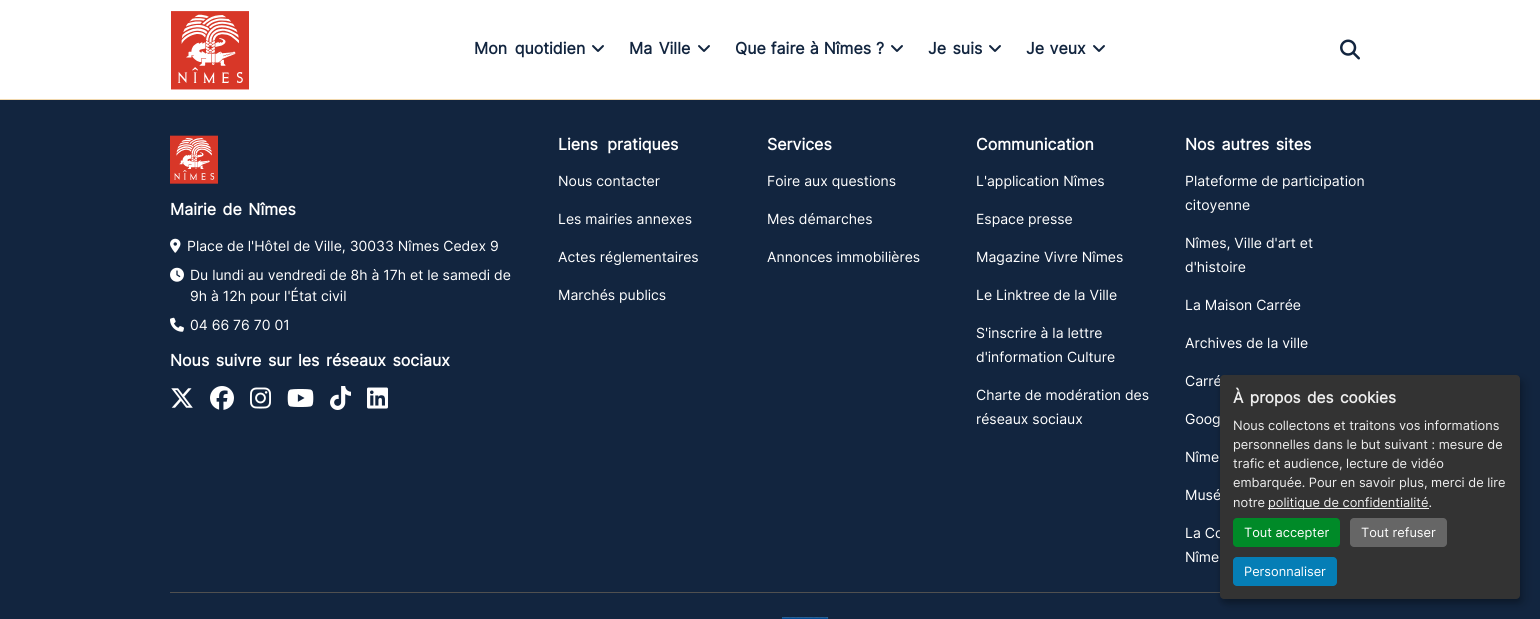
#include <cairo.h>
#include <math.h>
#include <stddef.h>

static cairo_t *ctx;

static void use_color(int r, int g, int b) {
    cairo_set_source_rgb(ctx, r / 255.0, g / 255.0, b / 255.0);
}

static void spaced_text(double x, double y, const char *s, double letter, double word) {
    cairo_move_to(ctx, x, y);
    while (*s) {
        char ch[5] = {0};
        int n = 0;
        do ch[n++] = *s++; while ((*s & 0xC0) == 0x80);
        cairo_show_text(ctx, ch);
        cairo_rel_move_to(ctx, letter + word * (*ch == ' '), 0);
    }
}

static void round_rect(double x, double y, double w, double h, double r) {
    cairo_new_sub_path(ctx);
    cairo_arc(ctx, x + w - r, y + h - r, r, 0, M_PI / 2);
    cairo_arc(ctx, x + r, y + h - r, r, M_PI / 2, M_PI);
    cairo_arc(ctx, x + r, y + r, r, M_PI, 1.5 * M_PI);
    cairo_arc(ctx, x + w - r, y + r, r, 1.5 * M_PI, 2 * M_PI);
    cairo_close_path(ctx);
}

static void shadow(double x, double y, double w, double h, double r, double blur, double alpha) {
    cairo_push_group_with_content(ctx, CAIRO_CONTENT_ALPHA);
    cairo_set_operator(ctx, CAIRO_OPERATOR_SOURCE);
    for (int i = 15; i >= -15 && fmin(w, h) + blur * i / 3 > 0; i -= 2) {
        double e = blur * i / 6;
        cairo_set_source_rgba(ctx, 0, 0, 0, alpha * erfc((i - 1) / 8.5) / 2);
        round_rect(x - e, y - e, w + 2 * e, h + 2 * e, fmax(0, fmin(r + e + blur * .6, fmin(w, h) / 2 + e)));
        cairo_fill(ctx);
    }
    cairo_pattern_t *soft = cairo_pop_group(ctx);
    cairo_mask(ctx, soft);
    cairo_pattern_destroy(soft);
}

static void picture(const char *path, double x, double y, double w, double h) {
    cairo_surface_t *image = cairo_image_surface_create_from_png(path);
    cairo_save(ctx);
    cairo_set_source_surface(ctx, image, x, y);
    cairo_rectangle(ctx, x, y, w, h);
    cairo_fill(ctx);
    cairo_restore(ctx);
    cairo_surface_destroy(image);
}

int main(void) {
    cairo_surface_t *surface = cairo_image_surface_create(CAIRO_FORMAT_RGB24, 1540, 619);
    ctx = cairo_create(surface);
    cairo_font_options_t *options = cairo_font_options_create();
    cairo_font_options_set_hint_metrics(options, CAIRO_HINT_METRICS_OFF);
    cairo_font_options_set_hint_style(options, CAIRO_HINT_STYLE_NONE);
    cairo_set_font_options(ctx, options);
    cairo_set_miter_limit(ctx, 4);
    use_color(18, 37, 63);
    cairo_paint(ctx);
    use_color(255, 255, 255);
    cairo_rectangle(ctx, 0, 0, 1540, 99);
    cairo_fill(ctx);
    use_color(241, 216, 174);
    cairo_rectangle(ctx, 0, 99, 1540, 1);
    cairo_fill(ctx);
    picture("img1.png", 171, 11, 78, 79);
    cairo_select_font_face(ctx, "Inter", CAIRO_FONT_SLANT_NORMAL, CAIRO_FONT_WEIGHT_BOLD);
    cairo_set_font_size(ctx, 16);
    use_color(18, 37, 63);
    spaced_text(474, 54, "Mon quotidien", 0, 3);
    picture("img2.png", 592, 45, 12, 7);
    spaced_text(629, 54, "Ma Ville", 0, 2);
    picture("img2.png", 698, 45, 12, 7);
    spaced_text(735, 54, "Que faire à Nîmes ?", 0, 0.5);
    picture("img2.png", 891, 45, 12, 7);
    spaced_text(928, 54, "Je suis", 0, 2);
    picture("img2.png", 989, 45, 12, 7);
    spaced_text(1026, 54, "Je veux", 0, 1);
    picture("img2.png", 1093, 45, 12, 7);
    picture("img3.png", 1340, 39, 20, 21);
    picture("img4.png", 170, 135, 48, 49);
    use_color(255, 255, 255);
    spaced_text(170, 215, "Mairie de Nîmes", 0, 2);
    picture("img5.png", 170, 238, 11, 15);
    cairo_select_font_face(ctx, "Inter", CAIRO_FONT_SLANT_NORMAL, CAIRO_FONT_WEIGHT_NORMAL);
    cairo_set_font_size(ctx, 14);
    cairo_move_to(ctx, 187, 251);
    cairo_show_text(ctx, "Place de l'Hôtel de Ville, 30033 Nîmes Cedex 9");
    picture("img6.png", 170, 267, 14, 15);
    cairo_move_to(ctx, 190, 280);
    cairo_show_text(ctx, "Du lundi au vendredi de 8h à 17h et le samedi de");
    cairo_move_to(ctx, 190, 301);
    cairo_show_text(ctx, "9h à 12h pour l'État civil");
    picture("img7.png", 170, 317, 14, 15);
    cairo_move_to(ctx, 190, 330);
    cairo_show_text(ctx, "04 66 76 70 01");
    cairo_select_font_face(ctx, "Inter", CAIRO_FONT_SLANT_NORMAL, CAIRO_FONT_WEIGHT_BOLD);
    cairo_set_font_size(ctx, 16);
    spaced_text(170, 366, "Nous suivre sur les réseaux sociaux", 0, 2);
    picture("img8.png", 171, 388, 22, 20);
    picture("img9.png", 210, 386, 24, 24);
    picture("img10.png", 250, 387, 21, 22);
    picture("img11.png", 287, 389, 27, 18);
    picture("img12.png", 330, 386, 21, 24);
    picture("img13.png", 367, 387, 21, 22);
    spaced_text(558, 150, "Liens pratiques", 0, 5);
    cairo_select_font_face(ctx, "Inter", CAIRO_FONT_SLANT_NORMAL, CAIRO_FONT_WEIGHT_NORMAL);
    cairo_set_font_size(ctx, 14);
    cairo_move_to(ctx, 558, 186);
    cairo_show_text(ctx, "Nous contacter");
    cairo_move_to(ctx, 558, 224);
    cairo_show_text(ctx, "Les mairies annexes");
    cairo_move_to(ctx, 558, 262);
    cairo_show_text(ctx, "Actes réglementaires");
    cairo_move_to(ctx, 558, 300);
    cairo_show_text(ctx, "Marchés publics");
    cairo_select_font_face(ctx, "Inter", CAIRO_FONT_SLANT_NORMAL, CAIRO_FONT_WEIGHT_BOLD);
    cairo_set_font_size(ctx, 16);
    cairo_move_to(ctx, 767, 150);
    cairo_show_text(ctx, "Services");
    cairo_select_font_face(ctx, "Inter", CAIRO_FONT_SLANT_NORMAL, CAIRO_FONT_WEIGHT_NORMAL);
    cairo_set_font_size(ctx, 14);
    cairo_move_to(ctx, 767, 186);
    cairo_show_text(ctx, "Foire aux questions");
    cairo_move_to(ctx, 767, 224);
    cairo_show_text(ctx, "Mes démarches");
    cairo_move_to(ctx, 767, 262);
    cairo_show_text(ctx, "Annonces immobilières");
    cairo_select_font_face(ctx, "Inter", CAIRO_FONT_SLANT_NORMAL, CAIRO_FONT_WEIGHT_BOLD);
    cairo_set_font_size(ctx, 16);
    cairo_move_to(ctx, 976, 150);
    cairo_show_text(ctx, "Communication");
    cairo_select_font_face(ctx, "Inter", CAIRO_FONT_SLANT_NORMAL, CAIRO_FONT_WEIGHT_NORMAL);
    cairo_set_font_size(ctx, 14);
    cairo_move_to(ctx, 976, 186);
    cairo_show_text(ctx, "L'application Nîmes");
    cairo_move_to(ctx, 976, 224);
    cairo_show_text(ctx, "Espace presse");
    cairo_move_to(ctx, 976, 262);
    cairo_show_text(ctx, "Magazine Vivre Nîmes");
    cairo_move_to(ctx, 976, 300);
    cairo_show_text(ctx, "Le Linktree de la Ville");
    cairo_move_to(ctx, 976, 338);
    cairo_show_text(ctx, "S'inscrire à la lettre");
    cairo_move_to(ctx, 976, 362);
    cairo_show_text(ctx, "d'information Culture");
    cairo_move_to(ctx, 976, 400);
    cairo_show_text(ctx, "Charte de modération des");
    cairo_move_to(ctx, 976, 424);
    cairo_show_text(ctx, "réseaux sociaux");
    cairo_select_font_face(ctx, "Inter", CAIRO_FONT_SLANT_NORMAL, CAIRO_FONT_WEIGHT_BOLD);
    cairo_set_font_size(ctx, 16);
    spaced_text(1185, 150, "Nos autres sites", 0, 2);
    cairo_select_font_face(ctx, "Inter", CAIRO_FONT_SLANT_NORMAL, CAIRO_FONT_WEIGHT_NORMAL);
    cairo_set_font_size(ctx, 14);
    cairo_move_to(ctx, 1185, 186);
    cairo_show_text(ctx, "Plateforme de participation");
    cairo_move_to(ctx, 1185, 210);
    cairo_show_text(ctx, "citoyenne");
    cairo_move_to(ctx, 1185, 248);
    cairo_show_text(ctx, "Nîmes, Ville d'art et");
    cairo_move_to(ctx, 1185, 272);
    cairo_show_text(ctx, "d'histoire");
    cairo_move_to(ctx, 1185, 310);
    cairo_show_text(ctx, "La Maison Carrée");
    cairo_move_to(ctx, 1185, 348);
    cairo_show_text(ctx, "Archives de la ville");
    cairo_move_to(ctx, 1185, 386);
    cairo_show_text(ctx, "Carré");
    cairo_move_to(ctx, 1185, 424);
    cairo_show_text(ctx, "Goog");
    cairo_move_to(ctx, 1185, 462);
    cairo_show_text(ctx, "Nîme");
    cairo_move_to(ctx, 1185, 500);
    cairo_show_text(ctx, "Musé");
    cairo_move_to(ctx, 1185, 538);
    cairo_show_text(ctx, "La Co");
    cairo_move_to(ctx, 1185, 562);
    cairo_show_text(ctx, "Nîme");
    use_color(80, 80, 80);
    cairo_rectangle(ctx, 170, 592, 1050, 1);
    cairo_fill(ctx);
    picture("img14.png", 782, 617, 47, 2);
    use_color(0, 0, 0);
    shadow(1225, 380, 300, 224, 4, 5, 0.19);
    shadow(1220, 379, 300, 224, 4, 3, 0.2);
    use_color(51, 51, 51);
    round_rect(1220, 375, 300, 224, 4);
    cairo_fill(ctx);
    cairo_select_font_face(ctx, "Inter", CAIRO_FONT_SLANT_NORMAL, CAIRO_FONT_WEIGHT_BOLD);
    cairo_set_font_size(ctx, 15.4);
    use_color(238, 238, 238);
    spaced_text(1233, 403, "À propos des cookies", 0, 2);
    cairo_select_font_face(ctx, "Inter", CAIRO_FONT_SLANT_NORMAL, CAIRO_FONT_WEIGHT_NORMAL);
    cairo_set_font_size(ctx, 12.8);
    cairo_move_to(ctx, 1233, 430);
    cairo_show_text(ctx, "Nous collectons et traitons vos informations");
    cairo_move_to(ctx, 1233, 449);
    cairo_show_text(ctx, "personnelles dans le but suivant : mesure de");
    cairo_move_to(ctx, 1233, 468);
    cairo_show_text(ctx, "trafic et audience, lecture de vidéo");
    cairo_move_to(ctx, 1233, 487);
    cairo_show_text(ctx, "embarquée. Pour en savoir plus, merci de lire");
    cairo_move_to(ctx, 1233, 507);
    cairo_show_text(ctx, "notre");
    cairo_rectangle(ctx, 1268, 508, 161, 1);
    cairo_fill(ctx);
    cairo_move_to(ctx, 1268, 507);
    cairo_show_text(ctx, "politique de confidentialité.");
    use_color(0, 138, 40);
    round_rect(1233, 518, 107, 29, 4);
    cairo_fill(ctx);
    use_color(255, 255, 255);
    cairo_move_to(ctx, 1244, 537);
    cairo_show_text(ctx, "Tout accepter");
    use_color(102, 102, 102);
    round_rect(1350, 518, 97, 29, 4);
    cairo_fill(ctx);
    use_color(255, 255, 255);
    cairo_move_to(ctx, 1361, 537);
    cairo_show_text(ctx, "Tout refuser");
    use_color(5, 126, 182);
    round_rect(1233, 557, 104, 29, 4);
    cairo_fill(ctx);
    use_color(255, 255, 255);
    cairo_move_to(ctx, 1244, 576);
    cairo_show_text(ctx, "Personnaliser");
    cairo_surface_write_to_png(surface, "result.png");
    cairo_font_options_destroy(options);
    cairo_destroy(ctx);
    cairo_surface_destroy(surface);
    return 0;
}
